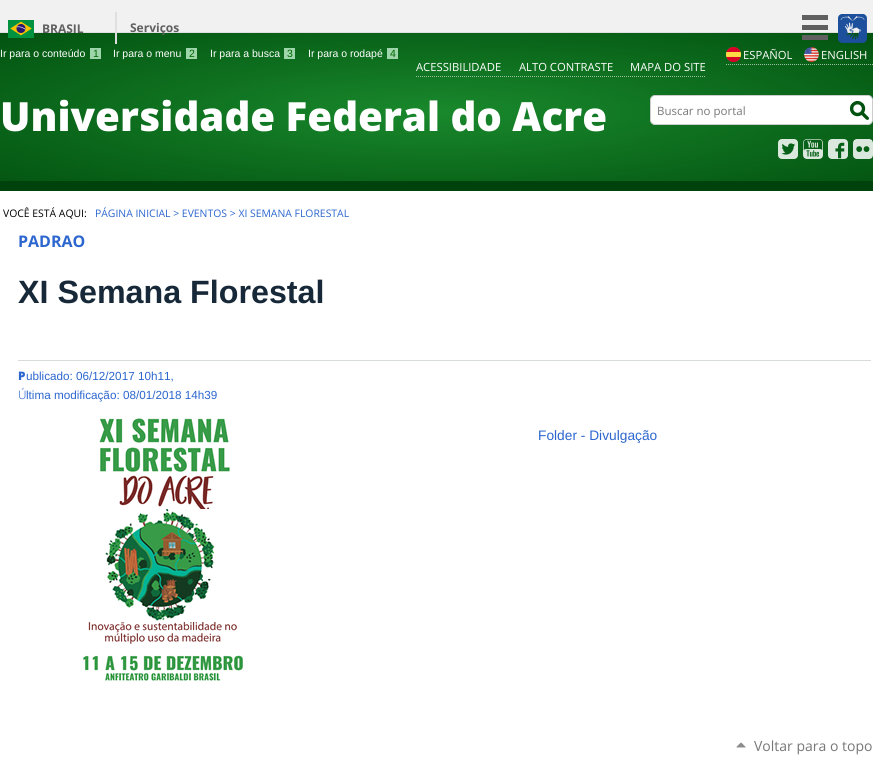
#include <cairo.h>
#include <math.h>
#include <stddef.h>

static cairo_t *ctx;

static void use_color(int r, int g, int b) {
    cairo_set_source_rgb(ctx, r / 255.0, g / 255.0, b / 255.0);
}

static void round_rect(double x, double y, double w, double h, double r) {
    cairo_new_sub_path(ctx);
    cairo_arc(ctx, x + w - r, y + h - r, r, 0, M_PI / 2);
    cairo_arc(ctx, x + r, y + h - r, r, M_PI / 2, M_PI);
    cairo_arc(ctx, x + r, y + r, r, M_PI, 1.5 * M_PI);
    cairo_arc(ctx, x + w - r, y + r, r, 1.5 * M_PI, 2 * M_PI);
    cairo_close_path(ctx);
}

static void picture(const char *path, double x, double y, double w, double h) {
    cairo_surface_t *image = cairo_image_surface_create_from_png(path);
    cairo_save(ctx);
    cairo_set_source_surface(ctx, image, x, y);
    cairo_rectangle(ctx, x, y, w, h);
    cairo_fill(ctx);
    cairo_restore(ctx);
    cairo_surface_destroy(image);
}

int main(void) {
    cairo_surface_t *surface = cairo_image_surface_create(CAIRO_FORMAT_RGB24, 873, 770);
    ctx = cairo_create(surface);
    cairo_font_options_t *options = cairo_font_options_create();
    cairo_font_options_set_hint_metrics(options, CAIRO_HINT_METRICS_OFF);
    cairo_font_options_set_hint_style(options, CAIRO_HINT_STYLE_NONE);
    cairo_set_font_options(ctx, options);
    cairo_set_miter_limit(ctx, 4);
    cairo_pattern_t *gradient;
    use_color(255, 255, 255);
    cairo_paint(ctx);
    use_color(241, 241, 241);
    cairo_rectangle(ctx, 0, 0, 873, 32);
    cairo_fill(ctx);
    use_color(223, 223, 223);
    cairo_rectangle(ctx, 0, 32, 873, 1);
    cairo_fill(ctx);
    gradient = cairo_pattern_create_radial(0, 0, 0, 0, 0, 1);
    cairo_pattern_set_matrix(gradient, &(cairo_matrix_t){1.0 / 617, 0, 0, 1.0 / 112, -1.0 * 437 / 617, -1.0 * 112 / 112});
    cairo_pattern_add_color_stop_rgba(gradient, 0.01, 0.098, 0.533, 0.173, 1);
    cairo_pattern_add_color_stop_rgba(gradient, 1, 0.008, 0.325, 0.063, 1);
    cairo_set_source(ctx, gradient);
    cairo_pattern_destroy(gradient);
    cairo_rectangle(ctx, 0, 33, 873, 148);
    cairo_fill(ctx);
    use_color(223, 223, 223);
    cairo_rectangle(ctx, 115, 12, 2, 32);
    cairo_fill(ctx);
    picture("img1.png", 8, 20, 26, 18);
    cairo_select_font_face(ctx, "Open Sans", CAIRO_FONT_SLANT_NORMAL, CAIRO_FONT_WEIGHT_BOLD);
    cairo_set_font_size(ctx, 12);
    use_color(96, 96, 96);
    cairo_move_to(ctx, 42, 33);
    cairo_show_text(ctx, "BRASIL");
    cairo_move_to(ctx, 130, 32);
    cairo_show_text(ctx, "Serviços");
    cairo_rectangle(ctx, 802, 15, 26, 5);
    cairo_fill(ctx);
    cairo_rectangle(ctx, 802, 25, 26, 5);
    cairo_fill(ctx);
    cairo_rectangle(ctx, 802, 35, 26, 5);
    cairo_fill(ctx);
    picture("img2.png", 838, 14, 29, 29);
    cairo_select_font_face(ctx, "Liberation Sans", CAIRO_FONT_SLANT_NORMAL, CAIRO_FONT_WEIGHT_NORMAL);
    cairo_set_font_size(ctx, 10.5);
    use_color(255, 255, 255);
    cairo_move_to(ctx, 0, 57);
    cairo_show_text(ctx, "Ir para o conteúdo");
    use_color(158, 213, 171);
    cairo_rectangle(ctx, 90, 48, 11, 11);
    cairo_fill(ctx);
    use_color(0, 102, 0);
    cairo_move_to(ctx, 93, 57);
    cairo_show_text(ctx, "1");
    use_color(255, 255, 255);
    cairo_move_to(ctx, 113, 57);
    cairo_show_text(ctx, "Ir para o menu");
    use_color(158, 213, 171);
    cairo_rectangle(ctx, 186, 48, 11, 11);
    cairo_fill(ctx);
    use_color(0, 102, 0);
    cairo_move_to(ctx, 189, 57);
    cairo_show_text(ctx, "2");
    use_color(255, 255, 255);
    cairo_move_to(ctx, 210, 57);
    cairo_show_text(ctx, "Ir para a busca");
    use_color(158, 213, 171);
    cairo_rectangle(ctx, 284, 48, 11, 11);
    cairo_fill(ctx);
    use_color(0, 102, 0);
    cairo_move_to(ctx, 287, 57);
    cairo_show_text(ctx, "3");
    use_color(255, 255, 255);
    cairo_move_to(ctx, 308, 57);
    cairo_show_text(ctx, "Ir para o rodapé");
    use_color(158, 213, 171);
    cairo_rectangle(ctx, 387, 48, 11, 11);
    cairo_fill(ctx);
    use_color(0, 102, 0);
    cairo_move_to(ctx, 390, 57);
    cairo_show_text(ctx, "4");
    cairo_new_path(ctx);
    cairo_move_to(ctx, 726, 64.5);
    cairo_line_to(ctx, 873, 64.5);
    use_color(155, 194, 163);
    cairo_set_line_width(ctx, 1);
    cairo_set_dash(ctx, (double[]){1, 1}, 2, 0);
    cairo_stroke(ctx);
    picture("img3.png", 726, 47, 15, 15);
    cairo_select_font_face(ctx, "Open Sans", CAIRO_FONT_SLANT_NORMAL, CAIRO_FONT_WEIGHT_NORMAL);
    cairo_set_font_size(ctx, 11.25);
    use_color(255, 255, 255);
    cairo_move_to(ctx, 743, 59);
    cairo_show_text(ctx, "ESPAÑOL");
    picture("img4.png", 804, 47, 15, 15);
    cairo_move_to(ctx, 821, 59);
    cairo_show_text(ctx, "ENGLISH");
    cairo_new_path(ctx);
    cairo_move_to(ctx, 416, 76.5);
    cairo_line_to(ctx, 706, 76.5);
    use_color(155, 194, 163);
    cairo_stroke(ctx);
    use_color(255, 255, 255);
    cairo_move_to(ctx, 416, 71);
    cairo_show_text(ctx, "ACESSIBILIDADE");
    cairo_move_to(ctx, 519, 71);
    cairo_show_text(ctx, "ALTO CONTRASTE");
    cairo_move_to(ctx, 630, 71);
    cairo_show_text(ctx, "MAPA DO SITE");
    cairo_select_font_face(ctx, "Open Sans ExtraBold", CAIRO_FONT_SLANT_NORMAL, CAIRO_FONT_WEIGHT_NORMAL);
    cairo_set_font_size(ctx, 40.25);
    cairo_move_to(ctx, 0, 131);
    cairo_show_text(ctx, "Universidade Federal do Acre");
    round_rect(650.5, 95.5, 222, 29, 4.5);
    cairo_fill_preserve(ctx);
    use_color(204, 204, 204);
    cairo_set_dash(ctx, NULL, 0, 0);
    cairo_stroke(ctx);
    cairo_select_font_face(ctx, "Open Sans", CAIRO_FONT_SLANT_NORMAL, CAIRO_FONT_WEIGHT_NORMAL);
    cairo_set_font_size(ctx, 11.5);
    use_color(119, 119, 119);
    cairo_move_to(ctx, 657, 115);
    cairo_show_text(ctx, "Buscar no portal");
    picture("img5.png", 850, 101, 19, 19);
    picture("img6.png", 778, 139, 20, 20);
    picture("img7.png", 803, 139, 20, 20);
    picture("img8.png", 828, 139, 20, 20);
    picture("img9.png", 853, 139, 20, 20);
    use_color(0, 66, 12);
    cairo_rectangle(ctx, 0, 181, 873, 10);
    cairo_fill(ctx);
    cairo_set_font_size(ctx, 10.4);
    use_color(0, 0, 0);
    cairo_move_to(ctx, 3, 217);
    cairo_show_text(ctx, "VOCÊ ESTÁ AQUI:");
    use_color(44, 102, 206);
    cairo_move_to(ctx, 95, 217);
    cairo_show_text(ctx, "PÁGINA INICIAL > EVENTOS > XI SEMANA FLORESTAL");
    cairo_select_font_face(ctx, "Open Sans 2", CAIRO_FONT_SLANT_NORMAL, CAIRO_FONT_WEIGHT_BOLD);
    cairo_set_font_size(ctx, 16);
    cairo_move_to(ctx, 18, 247);
    cairo_show_text(ctx, "PADRAO");
    cairo_select_font_face(ctx, "Liberation Sans", CAIRO_FONT_SLANT_NORMAL, CAIRO_FONT_WEIGHT_BOLD);
    cairo_set_font_size(ctx, 32.25);
    use_color(23, 41, 56);
    cairo_move_to(ctx, 18, 303);
    cairo_show_text(ctx, "XI Semana Florestal");
    use_color(215, 220, 216);
    cairo_rectangle(ctx, 18, 360, 853, 1);
    cairo_fill(ctx);
    cairo_select_font_face(ctx, "Noto Sans Black", CAIRO_FONT_SLANT_NORMAL, CAIRO_FONT_WEIGHT_NORMAL);
    cairo_set_font_size(ctx, 11.7);
    use_color(44, 102, 206);
    cairo_move_to(ctx, 18, 380);
    cairo_show_text(ctx, "P");
    cairo_select_font_face(ctx, "Liberation Sans", CAIRO_FONT_SLANT_NORMAL, CAIRO_FONT_WEIGHT_NORMAL);
    cairo_move_to(ctx, 26, 380);
    cairo_show_text(ctx, "ublicado: 06/12/2017 10h11,");
    cairo_select_font_face(ctx, "Noto Sans Light", CAIRO_FONT_SLANT_NORMAL, CAIRO_FONT_WEIGHT_NORMAL);
    cairo_move_to(ctx, 18, 399);
    cairo_show_text(ctx, "Ú");
    cairo_select_font_face(ctx, "Liberation Sans", CAIRO_FONT_SLANT_NORMAL, CAIRO_FONT_WEIGHT_NORMAL);
    cairo_move_to(ctx, 26, 399);
    cairo_show_text(ctx, "ltima modificação: 08/01/2018 14h39");
    picture("img10.png", 83, 418, 160, 263);
    cairo_set_font_size(ctx, 13.75);
    cairo_move_to(ctx, 538, 440);
    cairo_show_text(ctx, "Folder - Divulgação");
    picture("img11.png", 736, 742, 10, 7);
    cairo_select_font_face(ctx, "Open Sans", CAIRO_FONT_SLANT_NORMAL, CAIRO_FONT_WEIGHT_NORMAL);
    cairo_set_font_size(ctx, 14);
    use_color(119, 119, 119);
    cairo_move_to(ctx, 754, 751);
    cairo_show_text(ctx, "Voltar para o topo");
    cairo_surface_write_to_png(surface, "result.png");
    cairo_font_options_destroy(options);
    cairo_destroy(ctx);
    cairo_surface_destroy(surface);
    return 0;
}
